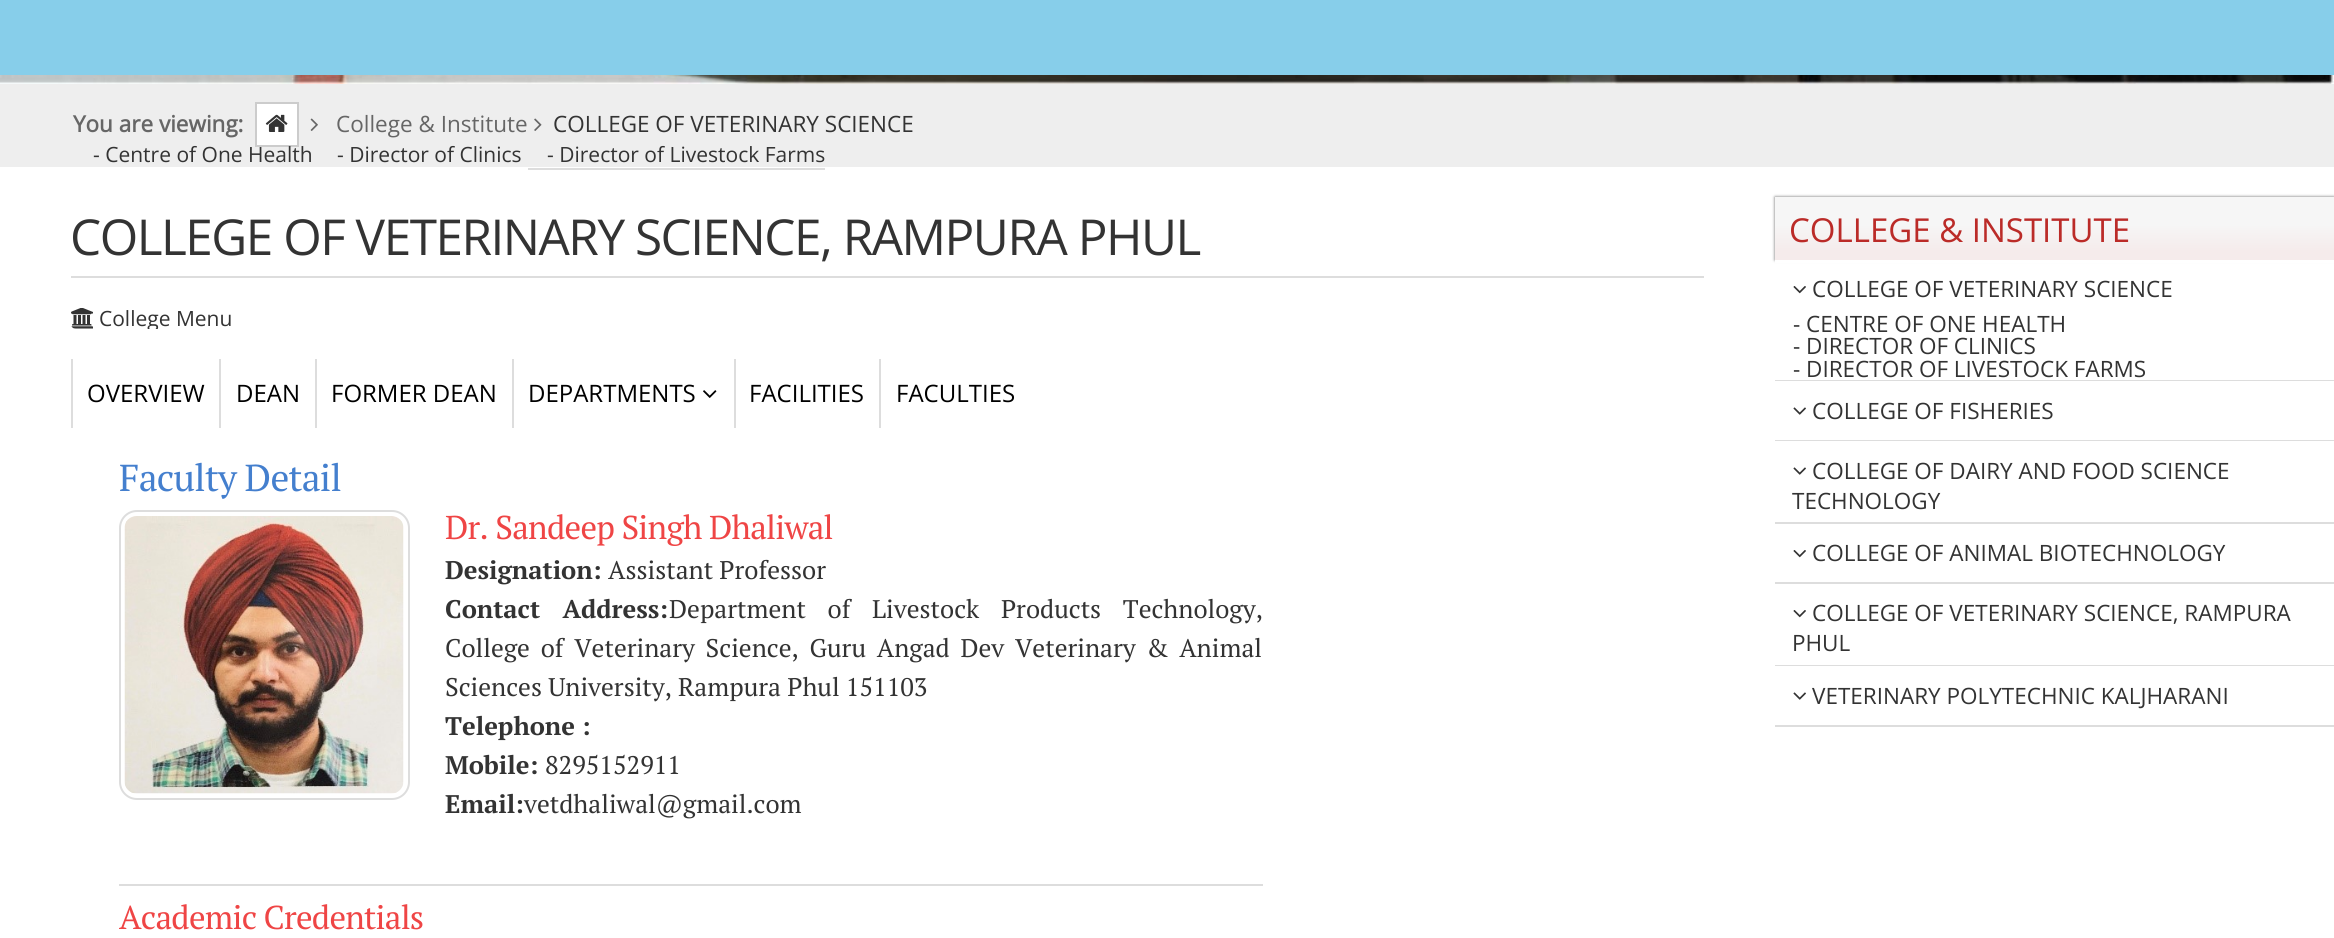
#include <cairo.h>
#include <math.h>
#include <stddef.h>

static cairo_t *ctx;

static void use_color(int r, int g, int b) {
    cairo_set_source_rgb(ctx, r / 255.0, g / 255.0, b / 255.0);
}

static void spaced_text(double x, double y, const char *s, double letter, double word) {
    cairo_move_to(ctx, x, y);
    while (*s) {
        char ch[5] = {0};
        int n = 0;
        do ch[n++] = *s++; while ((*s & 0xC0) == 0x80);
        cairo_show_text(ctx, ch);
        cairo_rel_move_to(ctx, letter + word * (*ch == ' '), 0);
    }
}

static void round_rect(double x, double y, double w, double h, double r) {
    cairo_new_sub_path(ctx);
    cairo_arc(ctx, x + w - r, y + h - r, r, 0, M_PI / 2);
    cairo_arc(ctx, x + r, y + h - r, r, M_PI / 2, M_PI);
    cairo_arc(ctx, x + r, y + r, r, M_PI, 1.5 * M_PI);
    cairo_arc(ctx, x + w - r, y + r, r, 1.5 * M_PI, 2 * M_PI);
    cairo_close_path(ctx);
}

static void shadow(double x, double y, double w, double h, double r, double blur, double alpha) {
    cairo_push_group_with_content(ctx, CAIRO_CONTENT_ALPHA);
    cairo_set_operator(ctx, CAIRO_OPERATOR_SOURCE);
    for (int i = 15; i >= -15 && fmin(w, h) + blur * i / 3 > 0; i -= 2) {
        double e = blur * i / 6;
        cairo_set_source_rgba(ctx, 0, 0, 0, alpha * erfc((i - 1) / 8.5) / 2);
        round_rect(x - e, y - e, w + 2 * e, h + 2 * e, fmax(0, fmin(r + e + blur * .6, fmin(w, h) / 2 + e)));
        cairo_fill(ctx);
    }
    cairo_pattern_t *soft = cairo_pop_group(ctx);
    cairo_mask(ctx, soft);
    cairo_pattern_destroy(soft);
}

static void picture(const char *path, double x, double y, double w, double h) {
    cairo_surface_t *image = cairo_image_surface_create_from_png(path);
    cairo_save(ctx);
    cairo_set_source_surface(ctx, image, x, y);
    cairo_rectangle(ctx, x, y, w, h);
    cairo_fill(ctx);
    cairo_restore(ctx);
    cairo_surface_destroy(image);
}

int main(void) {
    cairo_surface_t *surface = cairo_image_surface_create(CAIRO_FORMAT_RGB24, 2334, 938);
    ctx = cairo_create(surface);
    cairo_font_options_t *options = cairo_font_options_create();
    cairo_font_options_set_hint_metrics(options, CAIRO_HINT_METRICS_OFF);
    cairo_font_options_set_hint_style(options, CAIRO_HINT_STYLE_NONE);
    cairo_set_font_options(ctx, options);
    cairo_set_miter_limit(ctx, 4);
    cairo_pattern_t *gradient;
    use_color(255, 255, 255);
    cairo_paint(ctx);
    use_color(135, 206, 234);
    cairo_rectangle(ctx, 0, 0, 2334, 75);
    cairo_fill(ctx);
    picture("img1.png", 0, 75, 2334, 9);
    use_color(238, 238, 238);
    cairo_rectangle(ctx, 0, 84, 2334, 83);
    cairo_fill(ctx);
    cairo_select_font_face(ctx, "Open Sans", CAIRO_FONT_SLANT_NORMAL, CAIRO_FONT_WEIGHT_BOLD);
    cairo_set_font_size(ctx, 22.5);
    use_color(102, 102, 102);
    cairo_move_to(ctx, 73, 132);
    cairo_show_text(ctx, "You are viewing:");
    use_color(255, 255, 255);
    cairo_rectangle(ctx, 256, 103, 42, 43);
    cairo_fill_preserve(ctx);
    use_color(204, 204, 204);
    cairo_stroke(ctx);
    picture("img2.png", 265, 114, 23, 18);
    picture("img3.png", 310, 118, 8, 13);
    cairo_select_font_face(ctx, "Open Sans", CAIRO_FONT_SLANT_NORMAL, CAIRO_FONT_WEIGHT_NORMAL);
    use_color(102, 102, 102);
    cairo_move_to(ctx, 336, 132);
    cairo_show_text(ctx, "College & Institute");
    picture("img4.png", 534, 118, 8, 13);
    use_color(51, 51, 51);
    cairo_move_to(ctx, 553, 132);
    cairo_show_text(ctx, "COLLEGE OF VETERINARY SCIENCE");
    cairo_set_font_size(ctx, 21);
    cairo_move_to(ctx, 93, 162);
    cairo_show_text(ctx, "- Centre of One Health");
    cairo_move_to(ctx, 337, 162);
    cairo_show_text(ctx, "- Director of Clinics");
    cairo_move_to(ctx, 547, 162);
    cairo_show_text(ctx, "- Director of Livestock Farms");
    use_color(221, 221, 221);
    cairo_rectangle(ctx, 528, 168, 297, 2);
    cairo_fill(ctx);
    cairo_rectangle(ctx, 71, 276, 1633, 2);
    cairo_fill(ctx);
    cairo_set_font_size(ctx, 49.5);
    use_color(51, 51, 51);
    spaced_text(70, 255, "COLLEGE OF VETERINARY SCIENCE, RAMPURA PHUL", -1.5, 0);
    picture("img5.png", 71, 308, 22, 21);
    cairo_save(ctx);
    round_rect(71, 308, 1633, 21, 5);
    cairo_clip(ctx);
    cairo_set_font_size(ctx, 21);
    cairo_move_to(ctx, 99, 326);
    cairo_show_text(ctx, "College Menu");
    cairo_restore(ctx);
    use_color(221, 221, 221);
    cairo_rectangle(ctx, 71, 359, 2, 69);
    cairo_fill(ctx);
    cairo_set_font_size(ctx, 24);
    use_color(0, 0, 0);
    cairo_move_to(ctx, 87, 402);
    cairo_show_text(ctx, "OVERVIEW");
    use_color(221, 221, 221);
    cairo_rectangle(ctx, 219, 359, 2, 69);
    cairo_fill(ctx);
    use_color(0, 0, 0);
    cairo_move_to(ctx, 236, 402);
    cairo_show_text(ctx, "DEAN");
    use_color(221, 221, 221);
    cairo_rectangle(ctx, 315, 359, 2, 69);
    cairo_fill(ctx);
    use_color(0, 0, 0);
    cairo_move_to(ctx, 331, 402);
    cairo_show_text(ctx, "FORMER DEAN");
    use_color(221, 221, 221);
    cairo_rectangle(ctx, 512, 359, 2, 69);
    cairo_fill(ctx);
    use_color(0, 0, 0);
    cairo_move_to(ctx, 528, 402);
    cairo_show_text(ctx, "DEPARTMENTS");
    picture("img6.png", 703, 390, 14, 8);
    use_color(221, 221, 221);
    cairo_rectangle(ctx, 734, 359, 2, 69);
    cairo_fill(ctx);
    use_color(0, 0, 0);
    cairo_move_to(ctx, 749, 402);
    cairo_show_text(ctx, "FACILITIES");
    use_color(221, 221, 221);
    cairo_rectangle(ctx, 879, 359, 2, 69);
    cairo_fill(ctx);
    use_color(0, 0, 0);
    cairo_move_to(ctx, 896, 402);
    cairo_show_text(ctx, "FACULTIES");
    cairo_select_font_face(ctx, "PT Serif", CAIRO_FONT_SLANT_NORMAL, CAIRO_FONT_WEIGHT_NORMAL);
    cairo_set_font_size(ctx, 37.5);
    use_color(68, 127, 206);
    spaced_text(119, 491, "Faculty Detail", -0.75, 0);
    use_color(221, 221, 221);
    cairo_rectangle(ctx, 119, 884, 1144, 2);
    cairo_fill(ctx);
    round_rect(120, 511, 289, 288, 17);
    cairo_stroke(ctx);
    picture("img7.png", 124, 516, 280, 278);
    cairo_set_font_size(ctx, 33);
    use_color(239, 69, 69);
    spaced_text(445, 539, "Dr. Sandeep Singh Dhaliwal", -0.75, 0);
    cairo_select_font_face(ctx, "PT Serif", CAIRO_FONT_SLANT_NORMAL, CAIRO_FONT_WEIGHT_BOLD);
    cairo_set_font_size(ctx, 25.5);
    use_color(51, 51, 51);
    cairo_move_to(ctx, 445, 579);
    cairo_show_text(ctx, "Designation:");
    cairo_select_font_face(ctx, "PT Serif", CAIRO_FONT_SLANT_NORMAL, CAIRO_FONT_WEIGHT_NORMAL);
    cairo_move_to(ctx, 608, 579);
    cairo_show_text(ctx, "Assistant Professor");
    cairo_select_font_face(ctx, "PT Serif", CAIRO_FONT_SLANT_NORMAL, CAIRO_FONT_WEIGHT_BOLD);
    spaced_text(445, 618, "Contact Address:", 0, 15.5);
    cairo_select_font_face(ctx, "PT Serif", CAIRO_FONT_SLANT_NORMAL, CAIRO_FONT_WEIGHT_NORMAL);
    spaced_text(669, 618, "Department of Livestock Products Technology,", 0, 15.5);
    spaced_text(445, 657, "College of Veterinary Science, Guru Angad Dev Veterinary & Animal", 0, 4.5);
    cairo_move_to(ctx, 445, 696);
    cairo_show_text(ctx, "Sciences University, Rampura Phul 151103");
    cairo_select_font_face(ctx, "PT Serif", CAIRO_FONT_SLANT_NORMAL, CAIRO_FONT_WEIGHT_BOLD);
    cairo_move_to(ctx, 445, 735);
    cairo_show_text(ctx, "Telephone :");
    cairo_move_to(ctx, 445, 774);
    cairo_show_text(ctx, "Mobile:");
    cairo_select_font_face(ctx, "PT Serif", CAIRO_FONT_SLANT_NORMAL, CAIRO_FONT_WEIGHT_NORMAL);
    cairo_move_to(ctx, 545, 774);
    cairo_show_text(ctx, "8295152911");
    cairo_select_font_face(ctx, "PT Serif", CAIRO_FONT_SLANT_NORMAL, CAIRO_FONT_WEIGHT_BOLD);
    cairo_move_to(ctx, 445, 813);
    cairo_show_text(ctx, "Email:");
    cairo_select_font_face(ctx, "PT Serif", CAIRO_FONT_SLANT_NORMAL, CAIRO_FONT_WEIGHT_NORMAL);
    cairo_move_to(ctx, 524, 813);
    cairo_show_text(ctx, "vetdhaliwal@gmail.com");
    cairo_set_font_size(ctx, 33);
    use_color(239, 69, 69);
    spaced_text(119, 929, "Academic Credentials", -0.75, 0);
    use_color(102, 102, 102);
    shadow(1775, 197, 559, 63, 0, 1.5, 1);
    gradient = cairo_pattern_create_linear(2054, 260, 2054, 197);
    cairo_pattern_add_color_stop_rgba(gradient, 0.14, 0.961, 0.922, 0.922, 1);
    cairo_pattern_add_color_stop_rgba(gradient, 0.57, 0.965, 0.965, 0.965, 1);
    cairo_set_source(ctx, gradient);
    cairo_pattern_destroy(gradient);
    cairo_rectangle(ctx, 1775, 197, 559, 63);
    cairo_fill(ctx);
    cairo_select_font_face(ctx, "Open Sans", CAIRO_FONT_SLANT_NORMAL, CAIRO_FONT_WEIGHT_NORMAL);
    use_color(187, 43, 40);
    cairo_move_to(ctx, 1789, 242);
    cairo_show_text(ctx, "COLLEGE & INSTITUTE");
    use_color(255, 255, 255);
    cairo_rectangle(ctx, 1775, 260, 559, 3);
    cairo_fill(ctx);
    picture("img8.png", 1793, 286, 13, 8);
    cairo_set_font_size(ctx, 22.5);
    use_color(51, 51, 51);
    cairo_move_to(ctx, 1812, 297);
    cairo_show_text(ctx, "COLLEGE OF VETERINARY SCIENCE");
    cairo_move_to(ctx, 1793, 332);
    cairo_show_text(ctx, "- CENTRE OF ONE HEALTH");
    cairo_move_to(ctx, 1793, 354);
    cairo_show_text(ctx, "- DIRECTOR OF CLINICS");
    use_color(221, 221, 221);
    cairo_rectangle(ctx, 1775, 380, 559, 1);
    cairo_fill(ctx);
    use_color(51, 51, 51);
    cairo_move_to(ctx, 1793, 377);
    cairo_show_text(ctx, "- DIRECTOR OF LIVESTOCK FARMS");
    use_color(221, 221, 221);
    cairo_rectangle(ctx, 1775, 440, 559, 1);
    cairo_fill(ctx);
    picture("img9.png", 1793, 407, 13, 8);
    use_color(51, 51, 51);
    cairo_move_to(ctx, 1812, 419);
    cairo_show_text(ctx, "COLLEGE OF FISHERIES");
    use_color(221, 221, 221);
    cairo_rectangle(ctx, 1775, 522, 559, 2);
    cairo_fill(ctx);
    picture("img9.png", 1793, 467, 13, 8);
    use_color(51, 51, 51);
    cairo_move_to(ctx, 1812, 479);
    cairo_show_text(ctx, "COLLEGE OF DAIRY AND FOOD SCIENCE");
    cairo_move_to(ctx, 1792, 509);
    cairo_show_text(ctx, "TECHNOLOGY");
    use_color(221, 221, 221);
    cairo_rectangle(ctx, 1775, 582, 559, 2);
    cairo_fill(ctx);
    picture("img8.png", 1793, 550, 13, 8);
    use_color(51, 51, 51);
    cairo_move_to(ctx, 1812, 561);
    cairo_show_text(ctx, "COLLEGE OF ANIMAL BIOTECHNOLOGY");
    use_color(221, 221, 221);
    cairo_rectangle(ctx, 1775, 665, 559, 1);
    cairo_fill(ctx);
    picture("img8.png", 1793, 610, 13, 8);
    use_color(51, 51, 51);
    cairo_move_to(ctx, 1812, 621);
    cairo_show_text(ctx, "COLLEGE OF VETERINARY SCIENCE, RAMPURA");
    cairo_move_to(ctx, 1792, 651);
    cairo_show_text(ctx, "PHUL");
    use_color(221, 221, 221);
    cairo_rectangle(ctx, 1775, 725, 559, 2);
    cairo_fill(ctx);
    picture("img9.png", 1793, 692, 13, 8);
    use_color(51, 51, 51);
    cairo_move_to(ctx, 1812, 704);
    cairo_show_text(ctx, "VETERINARY POLYTECHNIC KALJHARANI");
    cairo_surface_write_to_png(surface, "result.png");
    cairo_font_options_destroy(options);
    cairo_destroy(ctx);
    cairo_surface_destroy(surface);
    return 0;
}
